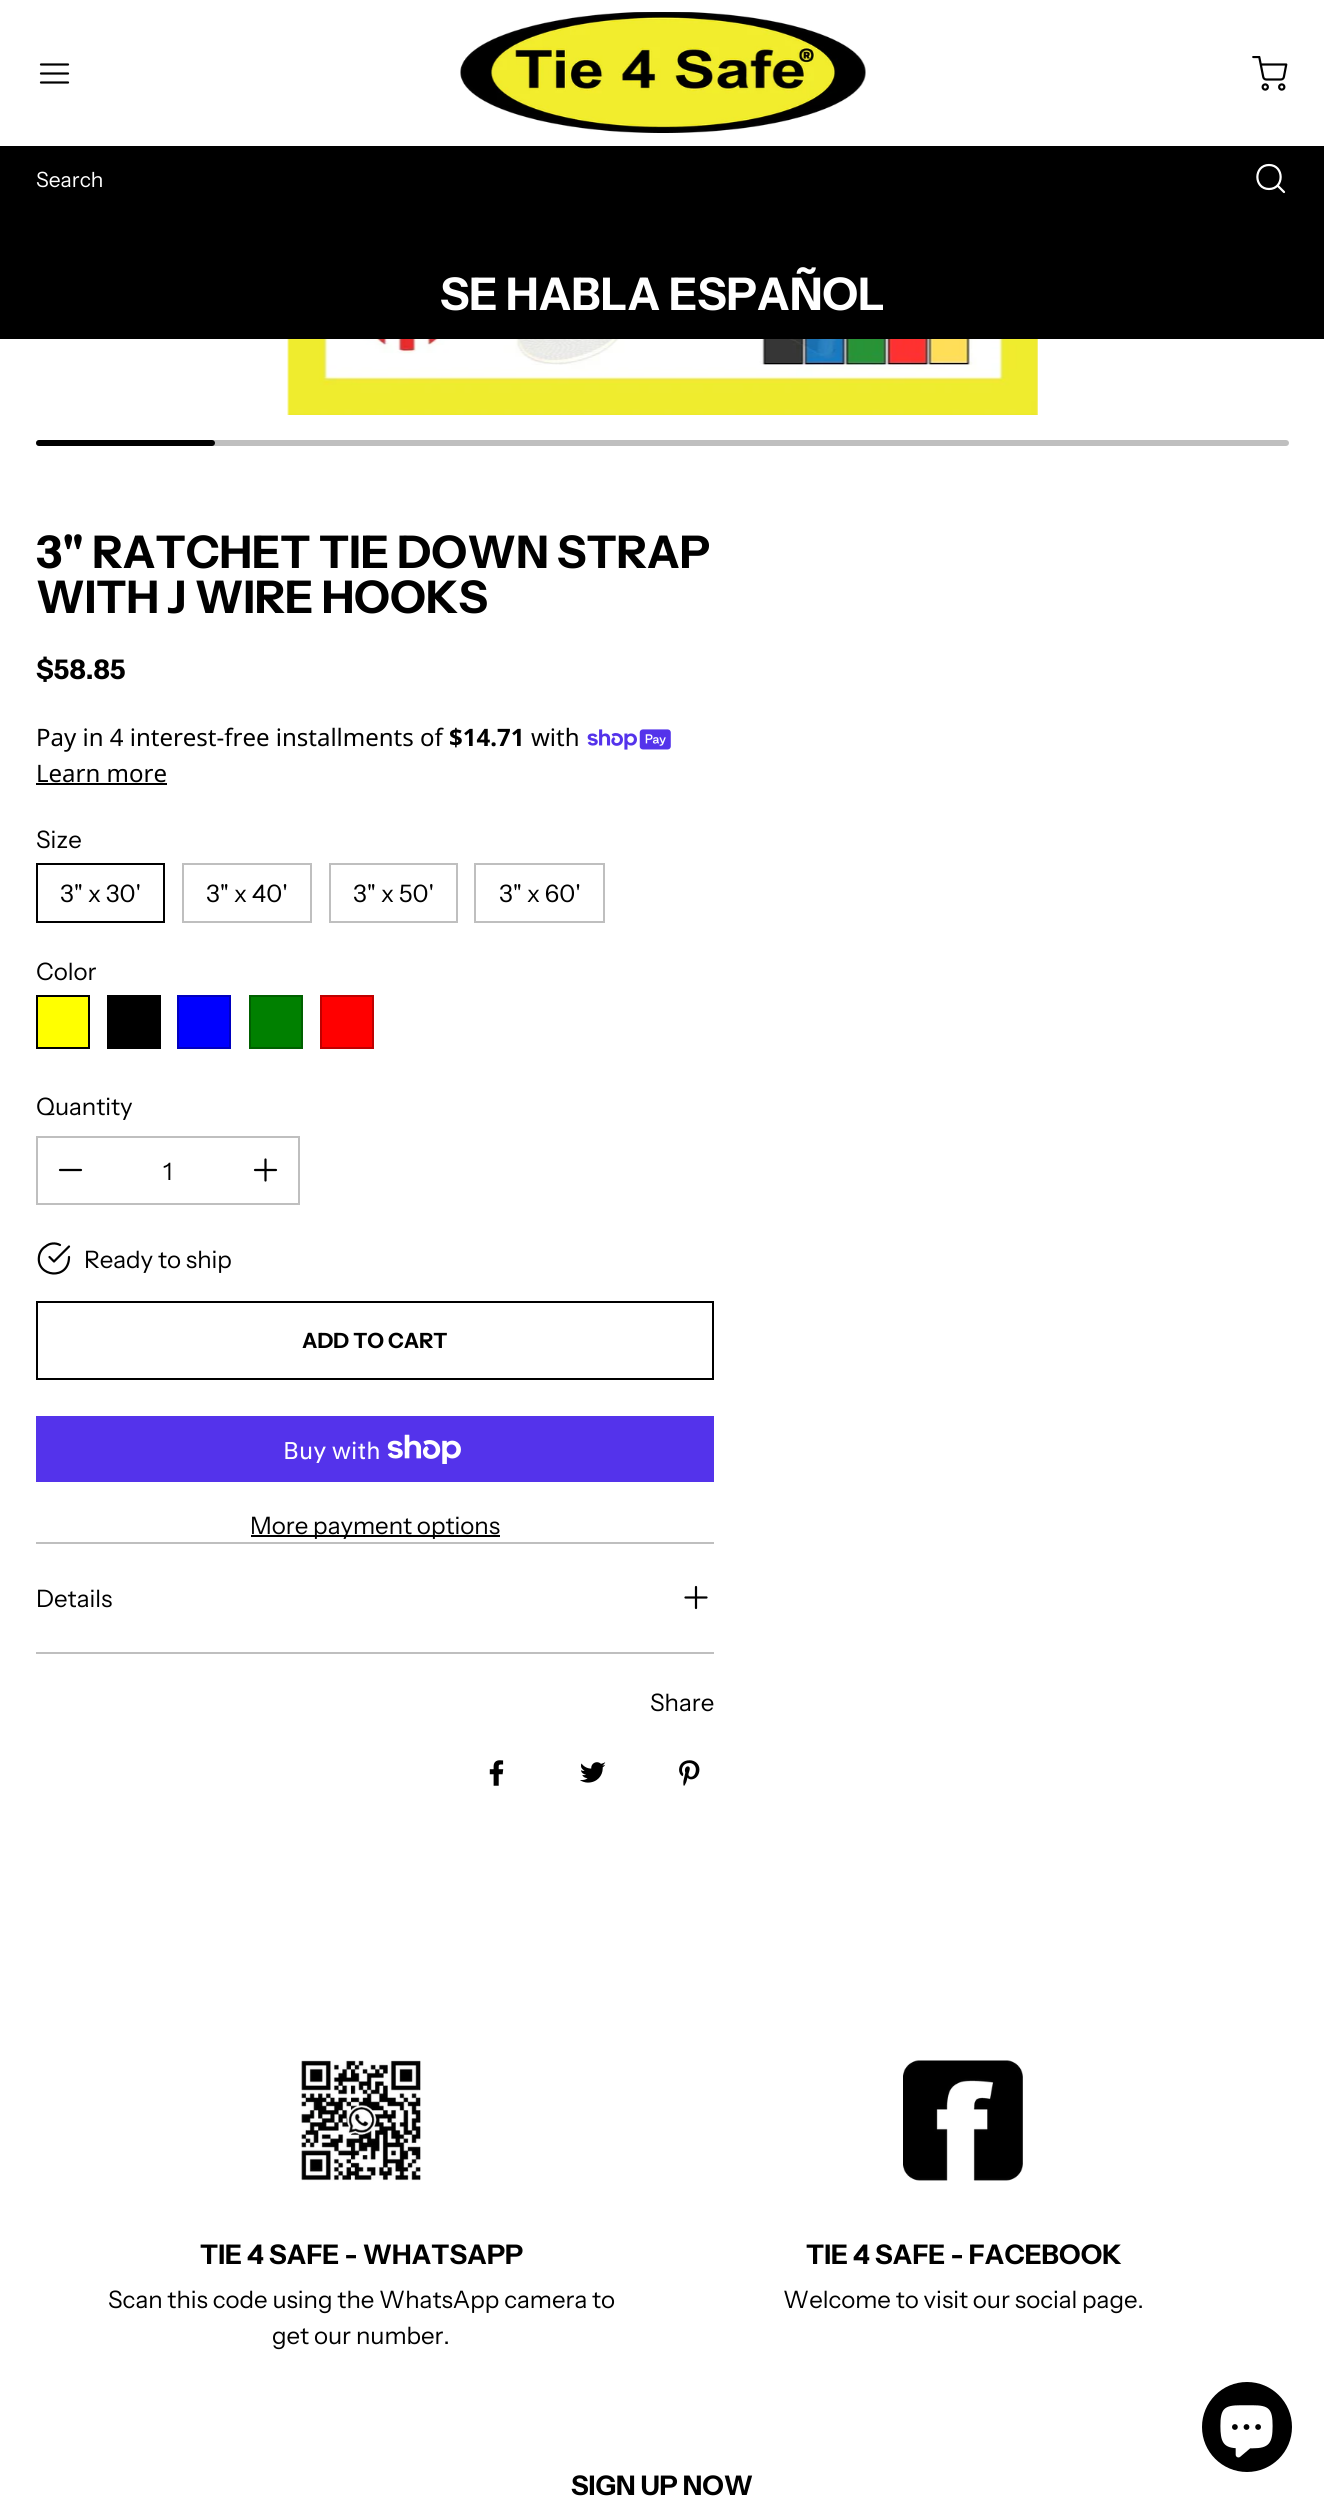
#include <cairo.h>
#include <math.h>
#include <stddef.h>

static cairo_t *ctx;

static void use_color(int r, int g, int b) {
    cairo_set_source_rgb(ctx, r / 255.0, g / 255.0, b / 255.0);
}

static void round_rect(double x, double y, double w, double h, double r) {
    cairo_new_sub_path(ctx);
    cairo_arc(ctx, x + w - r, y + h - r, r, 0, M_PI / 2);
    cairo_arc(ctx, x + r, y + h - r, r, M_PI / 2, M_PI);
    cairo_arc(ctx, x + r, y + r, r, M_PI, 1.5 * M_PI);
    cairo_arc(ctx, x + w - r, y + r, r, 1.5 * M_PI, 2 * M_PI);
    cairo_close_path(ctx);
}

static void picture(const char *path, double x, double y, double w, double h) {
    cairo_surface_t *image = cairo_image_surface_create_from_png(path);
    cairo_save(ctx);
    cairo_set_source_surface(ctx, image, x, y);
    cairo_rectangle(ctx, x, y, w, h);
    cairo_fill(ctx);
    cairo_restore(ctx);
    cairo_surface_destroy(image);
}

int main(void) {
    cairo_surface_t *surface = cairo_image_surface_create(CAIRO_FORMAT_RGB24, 1324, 2503);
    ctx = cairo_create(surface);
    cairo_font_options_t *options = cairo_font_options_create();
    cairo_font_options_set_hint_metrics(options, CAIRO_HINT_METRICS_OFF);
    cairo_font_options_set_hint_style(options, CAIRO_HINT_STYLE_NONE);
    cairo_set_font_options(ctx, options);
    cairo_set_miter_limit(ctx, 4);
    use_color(255, 255, 255);
    cairo_paint(ctx);
    cairo_new_path(ctx);
    cairo_move_to(ctx, 41, 73.5);
    cairo_line_to(ctx, 68, 73.5);
    cairo_move_to(ctx, 41, 64.5);
    cairo_line_to(ctx, 68, 64.5);
    cairo_move_to(ctx, 41, 82.5);
    cairo_line_to(ctx, 68, 82.5);
    use_color(0, 0, 0);
    cairo_set_line_width(ctx, 2.2);
    cairo_set_line_cap(ctx, CAIRO_LINE_CAP_ROUND);
    cairo_set_line_join(ctx, CAIRO_LINE_JOIN_ROUND);
    cairo_stroke(ctx);
    picture("img1.png", 460, 12, 406, 121);
    picture("img2.png", 1252, 56, 36, 35);
    cairo_rectangle(ctx, 0, 146, 1324, 193);
    cairo_fill(ctx);
    cairo_select_font_face(ctx, "Instrument Sans", CAIRO_FONT_SLANT_NORMAL, CAIRO_FONT_WEIGHT_NORMAL);
    cairo_set_font_size(ctx, 21);
    use_color(255, 255, 255);
    cairo_move_to(ctx, 36, 187);
    cairo_show_text(ctx, "Search");
    cairo_new_path(ctx);
    cairo_move_to(ctx, 1269, 189);
    cairo_curve_to(ctx, 1284.5, 189, 1284.5, 165, 1269, 165);
    cairo_curve_to(ctx, 1253.5, 165, 1253.5, 189, 1269, 189);
    cairo_close_path(ctx);
    cairo_move_to(ctx, 1284, 192);
    cairo_line_to(ctx, 1277.5, 185.5);
    cairo_stroke(ctx);
    cairo_select_font_face(ctx, "Instrument Sans", CAIRO_FONT_SLANT_NORMAL, CAIRO_FONT_WEIGHT_BOLD);
    cairo_set_font_size(ctx, 45);
    cairo_move_to(ctx, 440, 310);
    cairo_show_text(ctx, "SE HABLA ESPAÑOL");
    picture("img3.png", 287, 339, 751, 76);
    use_color(191, 191, 191);
    round_rect(36, 440, 1253, 6, 3);
    cairo_fill(ctx);
    use_color(0, 0, 0);
    round_rect(36, 440, 179, 6, 3);
    cairo_fill(ctx);
    cairo_move_to(ctx, 36, 568);
    cairo_show_text(ctx, "3\" RATCHET TIE DOWN STRAP");
    cairo_move_to(ctx, 36, 613);
    cairo_show_text(ctx, "WITH J WIRE HOOKS");
    cairo_set_font_size(ctx, 27);
    cairo_move_to(ctx, 36, 679);
    cairo_show_text(ctx, "$58.85");
    cairo_select_font_face(ctx, "Noto Sans", CAIRO_FONT_SLANT_NORMAL, CAIRO_FONT_WEIGHT_NORMAL);
    cairo_set_font_size(ctx, 24);
    cairo_move_to(ctx, 36, 746);
    cairo_show_text(ctx, "Pay in 4 interest-free installments of");
    cairo_select_font_face(ctx, "Noto Sans", CAIRO_FONT_SLANT_NORMAL, CAIRO_FONT_WEIGHT_BOLD);
    cairo_move_to(ctx, 449, 746);
    cairo_show_text(ctx, "$14.71");
    cairo_select_font_face(ctx, "Noto Sans", CAIRO_FONT_SLANT_NORMAL, CAIRO_FONT_WEIGHT_NORMAL);
    cairo_move_to(ctx, 531, 746);
    cairo_show_text(ctx, "with");
    picture("img4.png", 587, 729, 84, 21);
    cairo_move_to(ctx, 36, 782);
    cairo_show_text(ctx, "Learn more");
    cairo_rectangle(ctx, 36, 783, 131, 2);
    cairo_fill(ctx);
    cairo_select_font_face(ctx, "Instrument Sans", CAIRO_FONT_SLANT_NORMAL, CAIRO_FONT_WEIGHT_NORMAL);
    cairo_move_to(ctx, 36, 848);
    cairo_show_text(ctx, "Size");
    cairo_rectangle(ctx, 37, 864, 127, 58);
    cairo_set_line_width(ctx, 2);
    cairo_set_line_cap(ctx, CAIRO_LINE_CAP_BUTT);
    cairo_set_line_join(ctx, CAIRO_LINE_JOIN_MITER);
    cairo_stroke(ctx);
    cairo_move_to(ctx, 60, 902);
    cairo_show_text(ctx, "3\" x 30'");
    cairo_rectangle(ctx, 183, 864, 128, 58);
    use_color(191, 191, 191);
    cairo_stroke(ctx);
    use_color(0, 0, 0);
    cairo_move_to(ctx, 206, 902);
    cairo_show_text(ctx, "3\" x 40'");
    cairo_rectangle(ctx, 330, 864, 127, 58);
    use_color(191, 191, 191);
    cairo_stroke(ctx);
    use_color(0, 0, 0);
    cairo_move_to(ctx, 353, 902);
    cairo_show_text(ctx, "3\" x 50'");
    cairo_rectangle(ctx, 475, 864, 129, 58);
    use_color(191, 191, 191);
    cairo_stroke(ctx);
    use_color(0, 0, 0);
    cairo_move_to(ctx, 499, 902);
    cairo_show_text(ctx, "3\" x 60'");
    cairo_move_to(ctx, 36, 980);
    cairo_show_text(ctx, "Color");
    use_color(255, 255, 0);
    cairo_rectangle(ctx, 37, 996, 52, 52);
    cairo_fill_preserve(ctx);
    use_color(0, 0, 0);
    cairo_stroke(ctx);
    cairo_rectangle(ctx, 107, 995, 54, 54);
    cairo_fill(ctx);
    use_color(0, 0, 255);
    cairo_rectangle(ctx, 178, 996, 52, 52);
    cairo_fill_preserve(ctx);
    use_color(0, 0, 191);
    cairo_stroke(ctx);
    use_color(0, 128, 0);
    cairo_rectangle(ctx, 250, 996, 52, 52);
    cairo_fill_preserve(ctx);
    use_color(0, 96, 0);
    cairo_stroke(ctx);
    use_color(255, 0, 0);
    cairo_rectangle(ctx, 321, 996, 52, 52);
    cairo_fill_preserve(ctx);
    use_color(191, 0, 0);
    cairo_stroke(ctx);
    use_color(0, 0, 0);
    cairo_move_to(ctx, 36, 1115);
    cairo_show_text(ctx, "Quantity");
    cairo_rectangle(ctx, 37, 1137, 262, 67);
    use_color(191, 191, 191);
    cairo_stroke(ctx);
    cairo_new_path(ctx);
    cairo_move_to(ctx, 60, 1170);
    cairo_line_to(ctx, 81, 1170);
    use_color(0, 0, 0);
    cairo_set_line_width(ctx, 2.2);
    cairo_set_line_cap(ctx, CAIRO_LINE_CAP_ROUND);
    cairo_set_line_join(ctx, CAIRO_LINE_JOIN_ROUND);
    cairo_stroke(ctx);
    cairo_move_to(ctx, 163, 1180);
    cairo_show_text(ctx, "1");
    cairo_new_path(ctx);
    cairo_move_to(ctx, 265.5, 1159.5);
    cairo_line_to(ctx, 265.5, 1180.5);
    cairo_move_to(ctx, 255, 1170);
    cairo_line_to(ctx, 276, 1170);
    cairo_stroke(ctx);
    cairo_new_path(ctx);
    cairo_move_to(ctx, 69, 1257);
    cairo_curve_to(ctx, 69, 1281, 36, 1277, 39, 1256.5);
    cairo_curve_to(ctx, 39.5, 1252.5, 42, 1248.5, 45.5, 1246.5);
    cairo_curve_to(ctx, 49.5, 1243, 55.5, 1242.5, 60, 1245);
    cairo_move_to(ctx, 69, 1246.5);
    cairo_line_to(ctx, 54, 1261.5);
    cairo_line_to(ctx, 49.5, 1257);
    cairo_stroke(ctx);
    cairo_move_to(ctx, 84, 1268);
    cairo_show_text(ctx, "Ready to ship");
    cairo_rectangle(ctx, 37, 1302, 676, 77);
    cairo_set_line_width(ctx, 2);
    cairo_set_line_cap(ctx, CAIRO_LINE_CAP_BUTT);
    cairo_set_line_join(ctx, CAIRO_LINE_JOIN_MITER);
    cairo_stroke(ctx);
    cairo_select_font_face(ctx, "Instrument Sans", CAIRO_FONT_SLANT_NORMAL, CAIRO_FONT_WEIGHT_BOLD);
    cairo_set_font_size(ctx, 21);
    cairo_move_to(ctx, 302, 1348);
    cairo_show_text(ctx, "ADD TO CART");
    use_color(84, 51, 235);
    cairo_rectangle(ctx, 36, 1416, 678, 66);
    cairo_fill(ctx);
    cairo_select_font_face(ctx, "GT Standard", CAIRO_FONT_SLANT_NORMAL, CAIRO_FONT_WEIGHT_NORMAL);
    cairo_set_font_size(ctx, 24);
    use_color(255, 255, 255);
    cairo_move_to(ctx, 283, 1459);
    cairo_show_text(ctx, "Buy with");
    picture("img5.png", 387, 1434, 74, 30);
    use_color(0, 0, 0);
    cairo_rectangle(ctx, 251, 1535, 249, 2);
    cairo_fill(ctx);
    cairo_select_font_face(ctx, "Instrument Sans", CAIRO_FONT_SLANT_NORMAL, CAIRO_FONT_WEIGHT_NORMAL);
    cairo_move_to(ctx, 250, 1534);
    cairo_show_text(ctx, "More payment options");
    use_color(191, 191, 191);
    cairo_rectangle(ctx, 36, 1542, 678, 2);
    cairo_fill(ctx);
    cairo_rectangle(ctx, 36, 1652, 678, 2);
    cairo_fill(ctx);
    use_color(0, 0, 0);
    cairo_move_to(ctx, 36, 1607);
    cairo_show_text(ctx, "Details");
    cairo_new_path(ctx);
    cairo_move_to(ctx, 696, 1587);
    cairo_line_to(ctx, 696, 1608);
    cairo_move_to(ctx, 685.5, 1597.5);
    cairo_line_to(ctx, 706.5, 1597.5);
    cairo_set_line_width(ctx, 2.2);
    cairo_set_line_cap(ctx, CAIRO_LINE_CAP_ROUND);
    cairo_set_line_join(ctx, CAIRO_LINE_JOIN_ROUND);
    cairo_stroke(ctx);
    cairo_move_to(ctx, 650, 1711);
    cairo_show_text(ctx, "Share");
    picture("img6.png", 489, 1760, 15, 26);
    picture("img7.png", 580, 1762, 26, 21);
    picture("img8.png", 679, 1760, 21, 26);
    picture("img9.png", 301, 2060, 120, 121);
    cairo_select_font_face(ctx, "Instrument Sans", CAIRO_FONT_SLANT_NORMAL, CAIRO_FONT_WEIGHT_BOLD);
    cairo_set_font_size(ctx, 27);
    cairo_move_to(ctx, 200, 2264);
    cairo_show_text(ctx, "TIE 4 SAFE - WHATSAPP");
    cairo_select_font_face(ctx, "Instrument Sans", CAIRO_FONT_SLANT_NORMAL, CAIRO_FONT_WEIGHT_NORMAL);
    cairo_set_font_size(ctx, 24);
    cairo_move_to(ctx, 108, 2308);
    cairo_show_text(ctx, "Scan this code using the WhatsApp camera to");
    cairo_move_to(ctx, 272, 2344);
    cairo_show_text(ctx, "get our number.");
    picture("img10.png", 903, 2060, 120, 121);
    cairo_select_font_face(ctx, "Instrument Sans", CAIRO_FONT_SLANT_NORMAL, CAIRO_FONT_WEIGHT_BOLD);
    cairo_set_font_size(ctx, 27);
    cairo_move_to(ctx, 806, 2264);
    cairo_show_text(ctx, "TIE 4 SAFE - FACEBOOK");
    cairo_select_font_face(ctx, "Instrument Sans", CAIRO_FONT_SLANT_NORMAL, CAIRO_FONT_WEIGHT_NORMAL);
    cairo_set_font_size(ctx, 24);
    cairo_move_to(ctx, 783, 2308);
    cairo_show_text(ctx, "Welcome to visit our social page.");
    cairo_new_path(ctx);
    cairo_arc(ctx, 1247, 2427, 45, 0, 2 * M_PI);
    cairo_fill(ctx);
    picture("img11.png", 1220, 2405, 53, 53);
    cairo_select_font_face(ctx, "Instrument Sans", CAIRO_FONT_SLANT_NORMAL, CAIRO_FONT_WEIGHT_BOLD);
    cairo_set_font_size(ctx, 27);
    cairo_move_to(ctx, 571, 2495);
    cairo_show_text(ctx, "SIGN UP NOW");
    cairo_surface_write_to_png(surface, "result.png");
    cairo_font_options_destroy(options);
    cairo_destroy(ctx);
    cairo_surface_destroy(surface);
    return 0;
}
